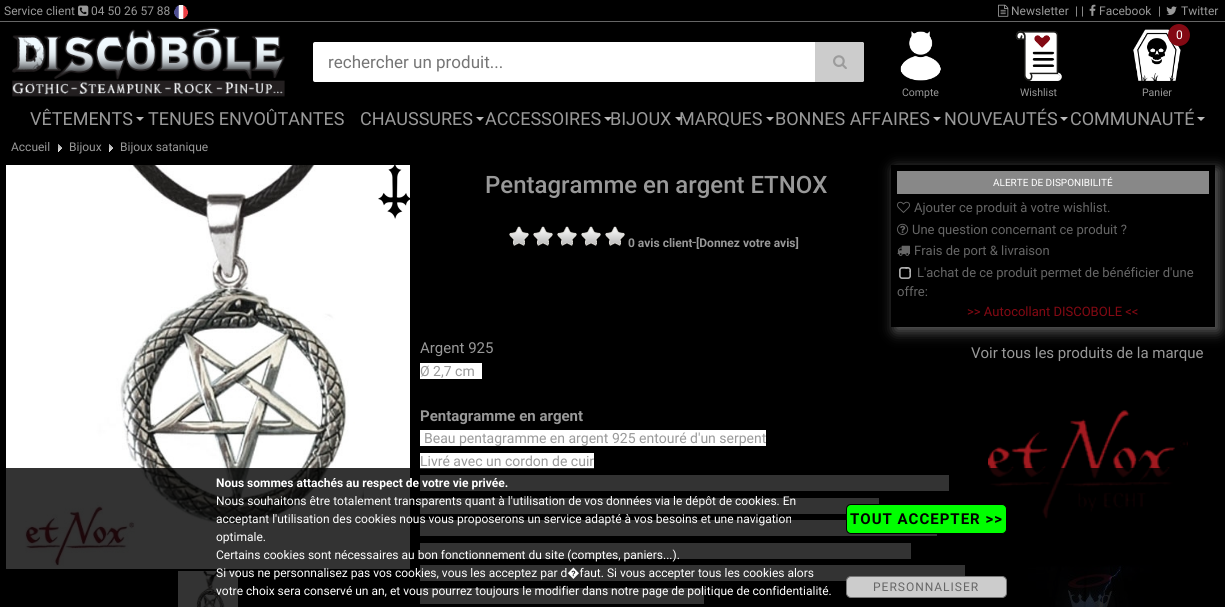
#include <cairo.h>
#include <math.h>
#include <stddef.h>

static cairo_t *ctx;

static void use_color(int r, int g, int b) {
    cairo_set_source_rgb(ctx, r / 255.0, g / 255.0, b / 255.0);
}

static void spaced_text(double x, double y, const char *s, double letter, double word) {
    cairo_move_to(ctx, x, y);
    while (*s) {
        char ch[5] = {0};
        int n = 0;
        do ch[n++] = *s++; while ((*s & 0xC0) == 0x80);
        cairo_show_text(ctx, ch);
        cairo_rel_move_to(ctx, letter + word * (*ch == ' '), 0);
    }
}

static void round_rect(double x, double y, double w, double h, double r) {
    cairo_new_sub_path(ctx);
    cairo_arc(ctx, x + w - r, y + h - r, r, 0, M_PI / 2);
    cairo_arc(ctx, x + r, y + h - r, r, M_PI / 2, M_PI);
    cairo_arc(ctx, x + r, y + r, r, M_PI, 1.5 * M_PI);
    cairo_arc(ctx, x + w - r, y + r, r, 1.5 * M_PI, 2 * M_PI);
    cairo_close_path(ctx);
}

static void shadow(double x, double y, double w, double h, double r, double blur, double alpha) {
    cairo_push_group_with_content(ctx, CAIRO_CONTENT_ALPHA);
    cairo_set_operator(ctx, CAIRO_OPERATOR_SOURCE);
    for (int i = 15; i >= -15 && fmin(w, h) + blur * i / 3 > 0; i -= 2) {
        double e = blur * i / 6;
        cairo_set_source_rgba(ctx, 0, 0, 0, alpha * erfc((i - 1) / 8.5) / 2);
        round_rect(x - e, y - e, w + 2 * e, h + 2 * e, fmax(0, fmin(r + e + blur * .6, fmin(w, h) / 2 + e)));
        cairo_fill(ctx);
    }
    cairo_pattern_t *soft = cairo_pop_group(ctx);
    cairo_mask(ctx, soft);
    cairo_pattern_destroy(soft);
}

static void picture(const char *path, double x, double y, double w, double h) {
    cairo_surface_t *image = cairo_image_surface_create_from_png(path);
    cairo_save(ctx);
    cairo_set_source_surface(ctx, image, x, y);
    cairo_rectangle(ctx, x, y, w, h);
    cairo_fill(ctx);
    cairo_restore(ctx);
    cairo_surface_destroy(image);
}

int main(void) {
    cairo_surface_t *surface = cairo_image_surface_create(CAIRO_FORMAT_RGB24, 1225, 607);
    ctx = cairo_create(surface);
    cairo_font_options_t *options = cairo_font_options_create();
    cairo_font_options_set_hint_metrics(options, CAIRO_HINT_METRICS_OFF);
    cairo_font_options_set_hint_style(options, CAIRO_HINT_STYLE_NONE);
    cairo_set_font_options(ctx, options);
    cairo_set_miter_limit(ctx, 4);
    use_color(0, 0, 0);
    cairo_paint(ctx);
    picture("img11.png", 58, 144, 4, 8);
    picture("img11.png", 109, 144, 4, 8);
    picture("img12.png", 6, 165, 404, 404);
    picture("img13.png", 378, 165, 32, 54);
    cairo_save(ctx);
    cairo_rectangle(ctx, 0, 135, 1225, 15);
    cairo_clip(ctx);
    shadow(0, 0, 1225, 135, 0, 10, 0.3);
    cairo_restore(ctx);
    use_color(102, 102, 102);
    cairo_rectangle(ctx, 0, 21, 1225, 1);
    cairo_fill(ctx);
    cairo_select_font_face(ctx, "Roboto", CAIRO_FONT_SLANT_NORMAL, CAIRO_FONT_WEIGHT_NORMAL);
    cairo_set_font_size(ctx, 12);
    use_color(153, 153, 153);
    cairo_move_to(ctx, 4, 15);
    cairo_show_text(ctx, "Service client");
    picture("img1.png", 78, 5, 11, 11);
    cairo_move_to(ctx, 91, 15);
    cairo_show_text(ctx, "04 50 26 57 88");
    picture("img2.png", 174, 5, 14, 14);
    picture("img3.png", 998, 4, 11, 13);
    cairo_move_to(ctx, 1011, 15);
    cairo_show_text(ctx, "Newsletter");
    cairo_move_to(ctx, 1075, 15);
    cairo_show_text(ctx, "| |");
    picture("img4.png", 1089, 4, 7, 12);
    cairo_move_to(ctx, 1099, 15);
    cairo_show_text(ctx, "Facebook");
    cairo_move_to(ctx, 1158, 15);
    cairo_show_text(ctx, "|");
    picture("img5.png", 1166, 6, 11, 9);
    cairo_move_to(ctx, 1181, 15);
    cairo_show_text(ctx, "Twitter");
    cairo_save(ctx);
    cairo_set_fill_rule(ctx, CAIRO_FILL_RULE_EVEN_ODD);
    cairo_new_path(ctx);
    cairo_move_to(ctx, 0, 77);
    cairo_line_to(ctx, 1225, 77);
    cairo_line_to(ctx, 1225, 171);
    cairo_line_to(ctx, 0, 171);
    cairo_close_path(ctx);
    cairo_move_to(ctx, 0, 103);
    cairo_line_to(ctx, 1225, 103);
    cairo_line_to(ctx, 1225, 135);
    cairo_line_to(ctx, 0, 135);
    cairo_close_path(ctx);
    cairo_clip(ctx);
    use_color(0, 0, 0);
    shadow(0, 108, 1225, 32, 0, 10, 1);
    cairo_restore(ctx);
    picture("img6.png", 12, 27, 273, 70);
    use_color(255, 255, 255);
    round_rect(313, 42, 551, 40, 2);
    cairo_fill(ctx);
    cairo_set_font_size(ctx, 17);
    use_color(117, 117, 117);
    cairo_move_to(ctx, 328, 68);
    cairo_show_text(ctx, "rechercher un produit...");
    use_color(204, 204, 204);
    cairo_new_path(ctx);
    cairo_move_to(ctx, 815, 42);
    cairo_line_to(ctx, 862, 42);
    cairo_curve_to(ctx, 863, 42, 864, 43, 864, 44);
    cairo_line_to(ctx, 864, 80);
    cairo_curve_to(ctx, 864, 81, 863, 82, 862, 82);
    cairo_line_to(ctx, 815, 82);
    cairo_close_path(ctx);
    cairo_fill(ctx);
    picture("img7.png", 833, 55, 14, 14);
    picture("img8.png", 900, 31, 41, 50);
    cairo_set_font_size(ctx, 10.5);
    use_color(153, 153, 153);
    cairo_move_to(ctx, 902, 96);
    cairo_show_text(ctx, "Compte");
    picture("img9.png", 1015, 30, 47, 51);
    cairo_move_to(ctx, 1020, 96);
    cairo_show_text(ctx, "Wishlist");
    picture("img10.png", 1133, 29, 48, 52);
    use_color(131, 9, 19);
    cairo_arc(ctx, 1179, 35, 11, 0, 2 * M_PI);
    cairo_fill(ctx);
    cairo_set_font_size(ctx, 12);
    use_color(255, 255, 255);
    cairo_move_to(ctx, 1176, 39);
    cairo_show_text(ctx, "0");
    cairo_set_font_size(ctx, 10.5);
    use_color(153, 153, 153);
    cairo_move_to(ctx, 1142, 96);
    cairo_show_text(ctx, "Panier");
    cairo_set_font_size(ctx, 18);
    cairo_move_to(ctx, 30, 125);
    cairo_show_text(ctx, "VÊTEMENTS");
    use_color(187, 187, 187);
    cairo_new_path(ctx);
    cairo_move_to(ctx, 136, 117);
    cairo_line_to(ctx, 144, 117);
    cairo_line_to(ctx, 140, 121);
    cairo_close_path(ctx);
    cairo_fill(ctx);
    use_color(153, 153, 153);
    cairo_move_to(ctx, 148, 125);
    cairo_show_text(ctx, "TENUES ENVOÛTANTES");
    cairo_move_to(ctx, 360, 125);
    cairo_show_text(ctx, "CHAUSSURES");
    use_color(187, 187, 187);
    cairo_new_path(ctx);
    cairo_move_to(ctx, 476, 117);
    cairo_line_to(ctx, 484, 117);
    cairo_line_to(ctx, 480, 121);
    cairo_close_path(ctx);
    cairo_fill(ctx);
    use_color(153, 153, 153);
    cairo_move_to(ctx, 485, 125);
    cairo_show_text(ctx, "ACCESSOIRES");
    use_color(187, 187, 187);
    cairo_new_path(ctx);
    cairo_move_to(ctx, 604, 117);
    cairo_line_to(ctx, 612, 117);
    cairo_line_to(ctx, 608, 121);
    cairo_close_path(ctx);
    cairo_fill(ctx);
    use_color(153, 153, 153);
    cairo_move_to(ctx, 610, 125);
    cairo_show_text(ctx, "BIJOUX");
    use_color(187, 187, 187);
    cairo_new_path(ctx);
    cairo_move_to(ctx, 675, 117);
    cairo_line_to(ctx, 683, 117);
    cairo_line_to(ctx, 679, 121);
    cairo_close_path(ctx);
    cairo_fill(ctx);
    use_color(153, 153, 153);
    cairo_move_to(ctx, 679, 125);
    cairo_show_text(ctx, "MARQUES");
    use_color(187, 187, 187);
    cairo_new_path(ctx);
    cairo_move_to(ctx, 766, 117);
    cairo_line_to(ctx, 774, 117);
    cairo_line_to(ctx, 770, 121);
    cairo_close_path(ctx);
    cairo_fill(ctx);
    use_color(153, 153, 153);
    cairo_move_to(ctx, 775, 125);
    cairo_show_text(ctx, "BONNES AFFAIRES");
    use_color(187, 187, 187);
    cairo_new_path(ctx);
    cairo_move_to(ctx, 933, 117);
    cairo_line_to(ctx, 941, 117);
    cairo_line_to(ctx, 937, 121);
    cairo_close_path(ctx);
    cairo_fill(ctx);
    use_color(153, 153, 153);
    cairo_move_to(ctx, 944, 125);
    cairo_show_text(ctx, "NOUVEAUTÉS");
    use_color(187, 187, 187);
    cairo_new_path(ctx);
    cairo_move_to(ctx, 1060, 117);
    cairo_line_to(ctx, 1068, 117);
    cairo_line_to(ctx, 1064, 121);
    cairo_close_path(ctx);
    cairo_fill(ctx);
    use_color(153, 153, 153);
    cairo_move_to(ctx, 1070, 125);
    cairo_show_text(ctx, "COMMUNAUTÉ");
    use_color(187, 187, 187);
    cairo_new_path(ctx);
    cairo_move_to(ctx, 1197, 117);
    cairo_line_to(ctx, 1205, 117);
    cairo_line_to(ctx, 1201, 121);
    cairo_close_path(ctx);
    cairo_fill(ctx);
    cairo_set_font_size(ctx, 12);
    use_color(153, 153, 153);
    cairo_move_to(ctx, 11, 151);
    cairo_show_text(ctx, "Accueil");
    cairo_move_to(ctx, 69, 151);
    cairo_show_text(ctx, "Bijoux");
    cairo_move_to(ctx, 120, 151);
    cairo_show_text(ctx, "Bijoux satanique");
    picture("img14.png", 178, 571, 60, 36);
    cairo_select_font_face(ctx, "Roboto Medium", CAIRO_FONT_SLANT_NORMAL, CAIRO_FONT_WEIGHT_NORMAL);
    cairo_set_font_size(ctx, 24);
    cairo_move_to(ctx, 485, 193);
    cairo_show_text(ctx, "Pentagramme en argent ETNOX");
    picture("img15.png", 509, 226, 116, 20);
    cairo_select_font_face(ctx, "Roboto", CAIRO_FONT_SLANT_NORMAL, CAIRO_FONT_WEIGHT_BOLD);
    cairo_set_font_size(ctx, 12);
    cairo_move_to(ctx, 628, 247);
    cairo_show_text(ctx, "0 avis client");
    cairo_select_font_face(ctx, "Roboto", CAIRO_FONT_SLANT_NORMAL, CAIRO_FONT_WEIGHT_NORMAL);
    cairo_set_font_size(ctx, 15);
    cairo_move_to(ctx, 692, 247);
    cairo_show_text(ctx, "-");
    cairo_select_font_face(ctx, "Roboto", CAIRO_FONT_SLANT_NORMAL, CAIRO_FONT_WEIGHT_BOLD);
    cairo_set_font_size(ctx, 12);
    cairo_move_to(ctx, 696, 247);
    cairo_show_text(ctx, "[Donnez votre avis]");
    cairo_save(ctx);
    cairo_set_fill_rule(ctx, CAIRO_FILL_RULE_EVEN_ODD);
    cairo_new_path(ctx);
    cairo_move_to(ctx, 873, 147);
    cairo_line_to(ctx, 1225, 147);
    cairo_line_to(ctx, 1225, 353);
    cairo_line_to(ctx, 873, 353);
    cairo_close_path(ctx);
    cairo_move_to(ctx, 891, 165);
    cairo_line_to(ctx, 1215, 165);
    cairo_line_to(ctx, 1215, 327);
    cairo_line_to(ctx, 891, 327);
    cairo_close_path(ctx);
    cairo_clip(ctx);
    use_color(102, 102, 102);
    shadow(895, 169, 324, 162, 0, 7, 1);
    cairo_restore(ctx);
    use_color(136, 136, 136);
    cairo_rectangle(ctx, 897, 171, 312, 23);
    cairo_fill(ctx);
    cairo_select_font_face(ctx, "Roboto", CAIRO_FONT_SLANT_NORMAL, CAIRO_FONT_WEIGHT_NORMAL);
    cairo_set_font_size(ctx, 10);
    use_color(255, 255, 255);
    cairo_move_to(ctx, 993, 186);
    cairo_show_text(ctx, "ALERTE DE DISPONIBILITÉ");
    picture("img16.png", 897, 201, 13, 12);
    cairo_set_font_size(ctx, 13);
    use_color(102, 102, 102);
    cairo_move_to(ctx, 914, 212);
    cairo_show_text(ctx, "Ajouter ce produit à votre wishlist.");
    picture("img17.png", 897, 223, 12, 12);
    cairo_move_to(ctx, 912, 234);
    cairo_show_text(ctx, "Une question concernant ce produit ?");
    picture("img18.png", 897, 245, 13, 11);
    cairo_move_to(ctx, 914, 255);
    cairo_show_text(ctx, "Frais de port & livraison");
    picture("img19.png", 899, 267, 12, 12);
    cairo_move_to(ctx, 917, 277);
    cairo_show_text(ctx, "L'achat de ce produit permet de bénéficier d'une");
    cairo_move_to(ctx, 897, 296);
    cairo_show_text(ctx, "offre:");
    use_color(131, 9, 19);
    cairo_move_to(ctx, 967, 316);
    cairo_show_text(ctx, ">> Autocollant DISCOBOLE <<");
    cairo_set_font_size(ctx, 15);
    use_color(153, 153, 153);
    cairo_move_to(ctx, 420, 353);
    cairo_show_text(ctx, "Argent 925");
    cairo_move_to(ctx, 971, 358);
    cairo_show_text(ctx, "Voir tous les produits de la marque");
    picture("img20.png", 988, 410, 200, 109);
    picture("img21.png", 1028, 565, 124, 42);
    use_color(255, 255, 255);
    cairo_rectangle(ctx, 420, 363, 62, 16);
    cairo_fill(ctx);
    cairo_set_font_size(ctx, 14);
    use_color(153, 153, 153);
    cairo_move_to(ctx, 420, 376);
    cairo_show_text(ctx, "Ø 2,7 cm");
    cairo_select_font_face(ctx, "Roboto", CAIRO_FONT_SLANT_NORMAL, CAIRO_FONT_WEIGHT_BOLD);
    cairo_set_font_size(ctx, 15);
    cairo_move_to(ctx, 420, 421);
    cairo_show_text(ctx, "Pentagramme en argent");
    use_color(255, 255, 255);
    cairo_rectangle(ctx, 420, 430, 346, 16);
    cairo_fill(ctx);
    cairo_select_font_face(ctx, "Roboto", CAIRO_FONT_SLANT_NORMAL, CAIRO_FONT_WEIGHT_NORMAL);
    cairo_set_font_size(ctx, 14);
    use_color(153, 153, 153);
    cairo_move_to(ctx, 424, 443);
    cairo_show_text(ctx, "Beau pentagramme en argent 925 entouré d'un serpent");
    use_color(255, 255, 255);
    cairo_rectangle(ctx, 420, 453, 174, 16);
    cairo_fill(ctx);
    use_color(153, 153, 153);
    cairo_move_to(ctx, 420, 466);
    cairo_show_text(ctx, "Livré avec un cordon de cuir");
    use_color(255, 255, 255);
    cairo_rectangle(ctx, 420, 475, 529, 16);
    cairo_fill(ctx);
    cairo_rectangle(ctx, 420, 498, 459, 16);
    cairo_fill(ctx);
    cairo_rectangle(ctx, 420, 520, 517, 16);
    cairo_fill(ctx);
    cairo_rectangle(ctx, 420, 543, 491, 16);
    cairo_fill(ctx);
    cairo_rectangle(ctx, 420, 565, 545, 16);
    cairo_fill(ctx);
    cairo_rectangle(ctx, 420, 588, 284, 16);
    cairo_fill(ctx);
    cairo_set_source_rgba(ctx, 0, 0, 0, 0.8);
    cairo_rectangle(ctx, 6, 468, 1166, 139);
    cairo_fill(ctx);
    cairo_select_font_face(ctx, "Roboto", CAIRO_FONT_SLANT_NORMAL, CAIRO_FONT_WEIGHT_BOLD);
    cairo_set_font_size(ctx, 12);
    use_color(255, 255, 255);
    cairo_move_to(ctx, 216, 487);
    cairo_show_text(ctx, "Nous sommes attachés au respect de votre vie privée.");
    cairo_select_font_face(ctx, "Roboto", CAIRO_FONT_SLANT_NORMAL, CAIRO_FONT_WEIGHT_NORMAL);
    cairo_move_to(ctx, 216, 505);
    cairo_show_text(ctx, "Nous souhaitons être totalement transparents quant à l'utilisation de vos données via le dépôt de cookies. En");
    cairo_move_to(ctx, 216, 523);
    cairo_show_text(ctx, "acceptant l'utilisation des cookies nous vous proposerons un service adapté à vos besoins et une navigation");
    cairo_move_to(ctx, 216, 541);
    cairo_show_text(ctx, "optimale.");
    cairo_move_to(ctx, 216, 559);
    cairo_show_text(ctx, "Certains cookies sont nécessaires au bon fonctionnement du site (comptes, paniers...).");
    cairo_move_to(ctx, 216, 577);
    cairo_show_text(ctx, "Si vous ne personnalisez pas vos cookies, vous les acceptez par d�faut. Si vous accepter tous les cookies alors");
    cairo_move_to(ctx, 216, 595);
    cairo_show_text(ctx, "votre choix sera conservé un an, et vous pourrez toujours le modifier dans notre page de politique de confidentialité.");
    use_color(0, 255, 0);
    round_rect(846.5, 504.5, 160, 29, 4.5);
    cairo_fill_preserve(ctx);
    use_color(0, 0, 0);
    cairo_set_line_width(ctx, 1);
    cairo_stroke(ctx);
    cairo_select_font_face(ctx, "Roboto", CAIRO_FONT_SLANT_NORMAL, CAIRO_FONT_WEIGHT_BOLD);
    cairo_set_font_size(ctx, 15);
    spaced_text(850, 524, "TOUT ACCEPTER >>", 1, 0);
    use_color(204, 204, 204);
    round_rect(846.5, 576.5, 160, 21, 4.5);
    cairo_fill_preserve(ctx);
    use_color(119, 119, 119);
    cairo_stroke(ctx);
    cairo_select_font_face(ctx, "Roboto", CAIRO_FONT_SLANT_NORMAL, CAIRO_FONT_WEIGHT_NORMAL);
    cairo_set_font_size(ctx, 12);
    use_color(102, 102, 102);
    spaced_text(873, 591, "PERSONNALISER", 1, 0);
    cairo_surface_write_to_png(surface, "result.png");
    cairo_font_options_destroy(options);
    cairo_destroy(ctx);
    cairo_surface_destroy(surface);
    return 0;
}
